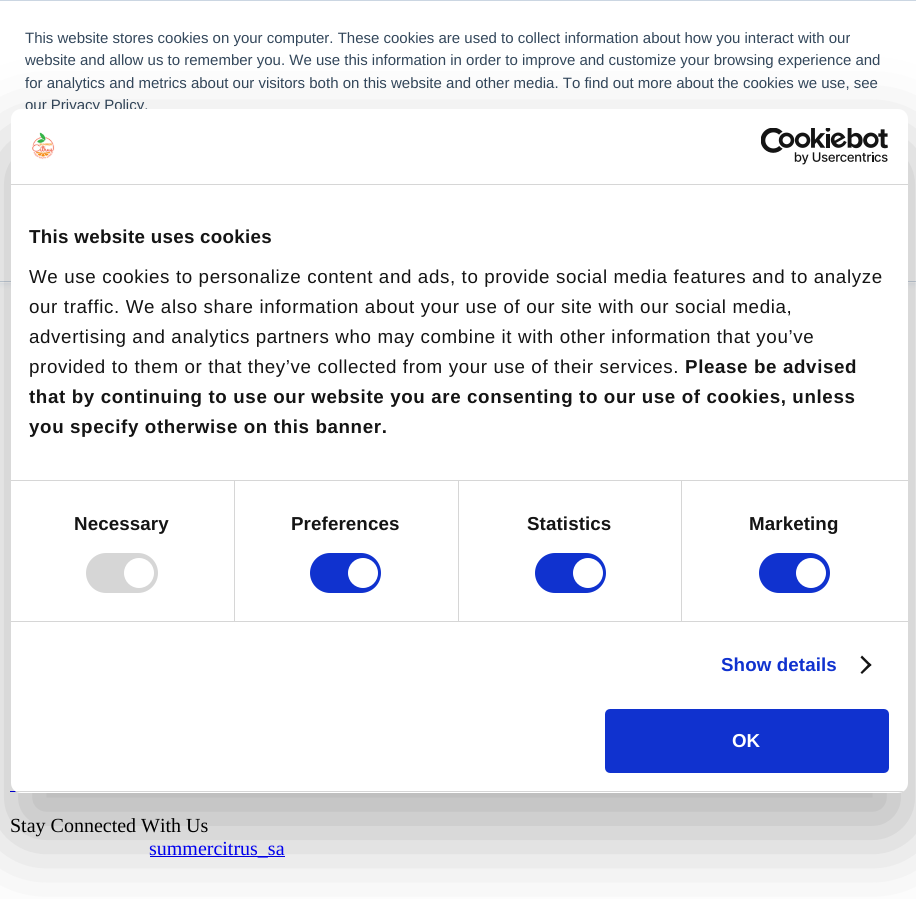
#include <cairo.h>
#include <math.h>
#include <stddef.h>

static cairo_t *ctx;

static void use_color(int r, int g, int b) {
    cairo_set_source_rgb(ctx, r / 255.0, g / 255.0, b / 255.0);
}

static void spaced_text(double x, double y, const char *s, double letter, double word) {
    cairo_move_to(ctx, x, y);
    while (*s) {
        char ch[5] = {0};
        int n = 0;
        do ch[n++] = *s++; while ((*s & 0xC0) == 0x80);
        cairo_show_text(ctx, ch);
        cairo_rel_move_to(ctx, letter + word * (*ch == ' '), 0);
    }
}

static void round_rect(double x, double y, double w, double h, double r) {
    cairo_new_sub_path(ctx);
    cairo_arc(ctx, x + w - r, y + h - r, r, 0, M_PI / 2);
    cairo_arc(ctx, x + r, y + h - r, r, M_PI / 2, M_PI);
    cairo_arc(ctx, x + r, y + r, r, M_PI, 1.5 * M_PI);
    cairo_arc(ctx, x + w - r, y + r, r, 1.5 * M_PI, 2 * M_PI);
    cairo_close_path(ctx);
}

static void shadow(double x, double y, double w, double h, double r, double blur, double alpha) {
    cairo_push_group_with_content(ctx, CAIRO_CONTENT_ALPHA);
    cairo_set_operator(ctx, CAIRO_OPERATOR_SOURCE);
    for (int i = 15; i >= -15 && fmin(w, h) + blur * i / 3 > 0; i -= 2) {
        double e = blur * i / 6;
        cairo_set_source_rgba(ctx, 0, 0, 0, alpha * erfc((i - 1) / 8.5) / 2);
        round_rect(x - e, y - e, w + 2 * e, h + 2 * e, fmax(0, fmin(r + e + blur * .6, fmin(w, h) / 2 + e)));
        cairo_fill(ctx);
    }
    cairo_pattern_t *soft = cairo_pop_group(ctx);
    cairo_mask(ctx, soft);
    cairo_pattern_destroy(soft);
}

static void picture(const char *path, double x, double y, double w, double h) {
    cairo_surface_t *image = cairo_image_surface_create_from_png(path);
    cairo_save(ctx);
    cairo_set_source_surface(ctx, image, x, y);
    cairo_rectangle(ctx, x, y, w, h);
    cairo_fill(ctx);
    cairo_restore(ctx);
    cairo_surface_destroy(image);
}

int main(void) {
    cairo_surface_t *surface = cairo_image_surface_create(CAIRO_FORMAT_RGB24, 916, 899);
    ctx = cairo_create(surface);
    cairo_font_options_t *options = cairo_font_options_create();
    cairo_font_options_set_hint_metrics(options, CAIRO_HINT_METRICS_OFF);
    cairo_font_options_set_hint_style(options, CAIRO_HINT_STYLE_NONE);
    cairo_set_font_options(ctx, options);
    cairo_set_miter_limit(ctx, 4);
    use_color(255, 255, 255);
    cairo_paint(ctx);
    use_color(234, 240, 246);
    shadow(0, 1, 916, 283, 0, 3, 1);
    use_color(255, 255, 255);
    cairo_rectangle(ctx, 0, 1, 916, 282);
    cairo_fill(ctx);
    use_color(203, 214, 226);
    cairo_rectangle(ctx, 0, 0, 916, 1);
    cairo_fill(ctx);
    cairo_rectangle(ctx, 0, 281, 916, 1);
    cairo_fill(ctx);
    cairo_select_font_face(ctx, "Liberation Sans", CAIRO_FONT_SLANT_NORMAL, CAIRO_FONT_WEIGHT_NORMAL);
    cairo_set_font_size(ctx, 15);
    use_color(51, 71, 91);
    cairo_move_to(ctx, 25, 43);
    cairo_show_text(ctx, "This website stores cookies on your computer. These cookies are used to collect information about how you interact with our");
    cairo_move_to(ctx, 25, 65);
    cairo_show_text(ctx, "website and allow us to remember you. We use this information in order to improve and customize your browsing experience and");
    cairo_move_to(ctx, 25, 88);
    cairo_show_text(ctx, "for analytics and metrics about our visitors both on this website and other media. To find out more about the cookies we use, see");
    cairo_move_to(ctx, 25, 110);
    cairo_show_text(ctx, "our Privacy Policy.");
    use_color(0, 0, 238);
    cairo_rectangle(ctx, 10, 791, 7, 1);
    cairo_fill(ctx);
    cairo_rectangle(ctx, 150, 856, 135, 1);
    cairo_fill(ctx);
    use_color(0, 0, 0);
    shadow(11, 149, 897, 684, 10, 42.5, 0.3);
    use_color(255, 255, 255);
    round_rect(11, 109, 897, 684, 10);
    cairo_fill(ctx);
    use_color(214, 214, 214);
    cairo_rectangle(ctx, 11, 184, 897, 1);
    cairo_fill(ctx);
    picture("img1.png", 32, 132, 23, 28);
    picture("img2.png", 761, 128, 127, 37);
    cairo_rectangle(ctx, 11, 480, 897, 1);
    cairo_fill(ctx);
    cairo_select_font_face(ctx, "Liberation Sans", CAIRO_FONT_SLANT_NORMAL, CAIRO_FONT_WEIGHT_BOLD);
    cairo_set_font_size(ctx, 18.75);
    use_color(20, 20, 20);
    spaced_text(29, 243, "This website uses cookies", 0.3, 0);
    cairo_select_font_face(ctx, "Liberation Sans", CAIRO_FONT_SLANT_NORMAL, CAIRO_FONT_WEIGHT_NORMAL);
    spaced_text(29, 283, "We use cookies to personalize content and ads, to provide social media features and to analyze", 0.62, 0);
    spaced_text(29, 313, "our traffic. We also share information about your use of our site with our social media,", 0.62, 0);
    spaced_text(29, 343, "advertising and analytics partners who may combine it with other information that you’ve", 0.62, 0);
    spaced_text(29, 373, "provided to them or that they’ve collected from your use of their services.", 0.62, 0);
    cairo_select_font_face(ctx, "Liberation Sans", CAIRO_FONT_SLANT_NORMAL, CAIRO_FONT_WEIGHT_BOLD);
    spaced_text(685, 373, "Please be advised", 0.62, 0);
    spaced_text(29, 403, "that by continuing to use our website you are consenting to our use of cookies, unless", 0.62, 0);
    spaced_text(29, 433, "you specify otherwise on this banner.", 0.62, 0);
    use_color(214, 214, 214);
    cairo_rectangle(ctx, 11, 621, 897, 1);
    cairo_fill(ctx);
    cairo_rectangle(ctx, 234, 481, 1, 140);
    cairo_fill(ctx);
    use_color(20, 20, 20);
    spaced_text(74, 530, "Necessary", 0.1, 0);
    use_color(214, 214, 214);
    round_rect(86, 553, 72, 40, 20);
    cairo_fill(ctx);
    use_color(255, 255, 255);
    cairo_arc(ctx, 139, 573, 15, 0, 2 * M_PI);
    cairo_fill(ctx);
    use_color(214, 214, 214);
    cairo_rectangle(ctx, 458, 481, 1, 140);
    cairo_fill(ctx);
    use_color(20, 20, 20);
    spaced_text(291, 530, "Preferences", 0.1, 0);
    use_color(16, 50, 207);
    round_rect(310, 553, 71, 40, 20);
    cairo_fill(ctx);
    use_color(255, 255, 255);
    cairo_arc(ctx, 363, 573, 15, 0, 2 * M_PI);
    cairo_fill(ctx);
    use_color(214, 214, 214);
    cairo_rectangle(ctx, 681, 481, 1, 140);
    cairo_fill(ctx);
    use_color(20, 20, 20);
    spaced_text(527, 530, "Statistics", 0.1, 0);
    use_color(16, 50, 207);
    round_rect(535, 553, 71, 40, 20);
    cairo_fill(ctx);
    use_color(255, 255, 255);
    cairo_arc(ctx, 588, 573, 15, 0, 2 * M_PI);
    cairo_fill(ctx);
    use_color(20, 20, 20);
    spaced_text(749, 530, "Marketing", 0.1, 0);
    use_color(16, 50, 207);
    round_rect(759, 553, 71, 40, 20);
    cairo_fill(ctx);
    use_color(255, 255, 255);
    cairo_arc(ctx, 811, 573, 15, 0, 2 * M_PI);
    cairo_fill(ctx);
    use_color(16, 50, 207);
    spaced_text(721, 671, "Show details", 0.1, 0);
    use_color(20, 20, 20);
    cairo_new_path(ctx);
    cairo_move_to(ctx, 862, 655.5);
    cairo_line_to(ctx, 871.5, 665);
    cairo_line_to(ctx, 869.5, 666.5);
    cairo_line_to(ctx, 860.5, 657.5);
    cairo_close_path(ctx);
    cairo_fill(ctx);
    cairo_new_path(ctx);
    cairo_move_to(ctx, 869.5, 663);
    cairo_line_to(ctx, 871.5, 665);
    cairo_line_to(ctx, 862, 674);
    cairo_line_to(ctx, 860.5, 672.5);
    cairo_close_path(ctx);
    cairo_fill(ctx);
    cairo_save(ctx);
    round_rect(11, 109, 897, 684, 10);
    cairo_clip(ctx);
    use_color(214, 214, 214);
    cairo_rectangle(ctx, 11, 791, 897, 1);
    cairo_fill(ctx);
    cairo_restore(ctx);
    use_color(16, 50, 207);
    round_rect(606.5, 710.5, 281, 61, 3.5);
    cairo_fill_preserve(ctx);
    cairo_set_line_width(ctx, 3);
    cairo_stroke(ctx);
    use_color(255, 255, 255);
    cairo_move_to(ctx, 732, 747);
    cairo_show_text(ctx, "OK");
    cairo_select_font_face(ctx, "Liberation Serif", CAIRO_FONT_SLANT_NORMAL, CAIRO_FONT_WEIGHT_NORMAL);
    cairo_set_font_size(ctx, 20);
    use_color(0, 0, 0);
    cairo_move_to(ctx, 10, 832);
    cairo_show_text(ctx, "Stay Connected With Us");
    use_color(0, 0, 238);
    cairo_move_to(ctx, 149, 855);
    cairo_show_text(ctx, "summercitrus_sa");
    cairo_surface_write_to_png(surface, "result.png");
    cairo_font_options_destroy(options);
    cairo_destroy(ctx);
    cairo_surface_destroy(surface);
    return 0;
}
